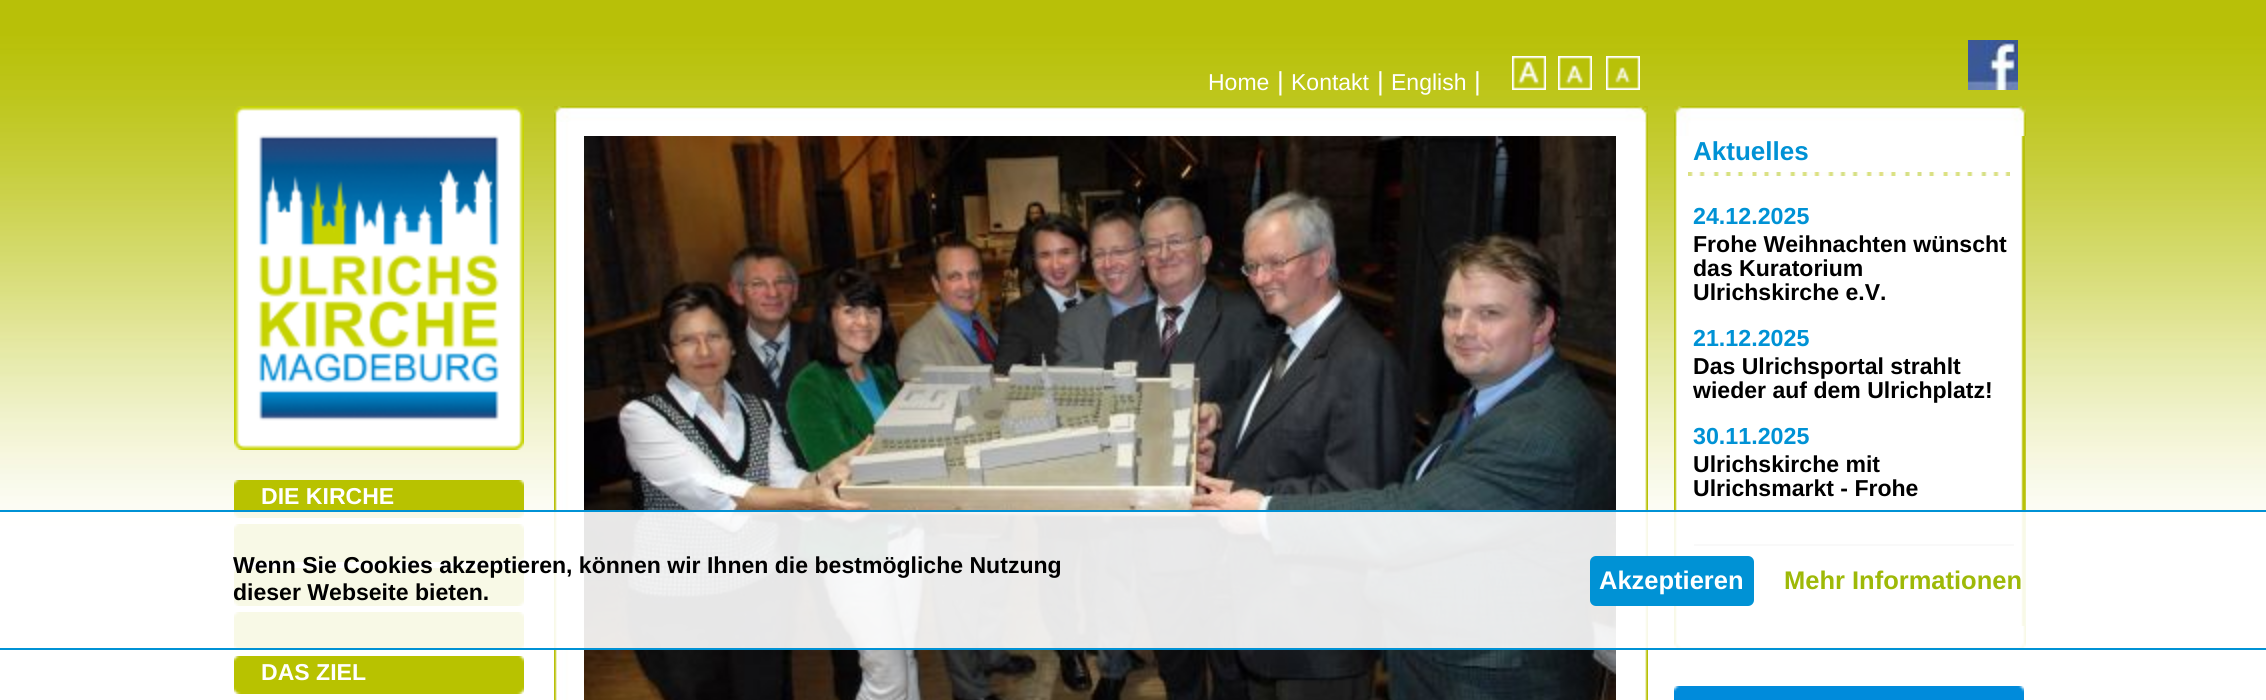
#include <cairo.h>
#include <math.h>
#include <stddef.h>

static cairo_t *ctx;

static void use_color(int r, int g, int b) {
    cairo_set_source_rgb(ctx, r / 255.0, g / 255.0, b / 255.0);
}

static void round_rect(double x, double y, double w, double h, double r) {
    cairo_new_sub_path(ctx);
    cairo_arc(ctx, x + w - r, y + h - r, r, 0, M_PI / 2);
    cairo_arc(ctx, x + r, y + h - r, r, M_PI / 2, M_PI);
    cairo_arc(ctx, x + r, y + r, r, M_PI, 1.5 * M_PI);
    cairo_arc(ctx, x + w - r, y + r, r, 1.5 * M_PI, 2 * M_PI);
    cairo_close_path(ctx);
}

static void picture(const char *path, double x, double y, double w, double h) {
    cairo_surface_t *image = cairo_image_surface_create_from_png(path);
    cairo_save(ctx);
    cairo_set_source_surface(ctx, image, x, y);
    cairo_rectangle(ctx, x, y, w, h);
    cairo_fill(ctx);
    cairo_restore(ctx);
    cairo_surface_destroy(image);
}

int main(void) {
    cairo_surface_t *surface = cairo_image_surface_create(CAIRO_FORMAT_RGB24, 2266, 700);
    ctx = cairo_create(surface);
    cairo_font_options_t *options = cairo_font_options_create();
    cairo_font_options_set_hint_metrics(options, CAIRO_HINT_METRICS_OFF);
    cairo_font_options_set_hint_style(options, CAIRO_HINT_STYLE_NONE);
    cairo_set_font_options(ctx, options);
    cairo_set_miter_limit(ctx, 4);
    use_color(255, 255, 255);
    cairo_paint(ctx);
    picture("img1.png", 0, 0, 2266, 527);
    cairo_select_font_face(ctx, "Liberation Sans", CAIRO_FONT_SLANT_NORMAL, CAIRO_FONT_WEIGHT_NORMAL);
    cairo_set_font_size(ctx, 23);
    use_color(255, 255, 255);
    cairo_move_to(ctx, 1208, 90);
    cairo_show_text(ctx, "Home");
    cairo_set_font_size(ctx, 26);
    cairo_move_to(ctx, 1277, 90);
    cairo_show_text(ctx, "|");
    cairo_set_font_size(ctx, 23);
    cairo_move_to(ctx, 1291, 90);
    cairo_show_text(ctx, "Kontakt");
    cairo_set_font_size(ctx, 26);
    cairo_move_to(ctx, 1377, 90);
    cairo_show_text(ctx, "|");
    cairo_set_font_size(ctx, 23);
    cairo_move_to(ctx, 1391, 90);
    cairo_show_text(ctx, "English");
    cairo_set_font_size(ctx, 26);
    cairo_move_to(ctx, 1474, 90);
    cairo_show_text(ctx, "|");
    picture("img2.png", 1512, 56, 34, 34);
    picture("img3.png", 1558, 56, 34, 34);
    picture("img4.png", 1606, 56, 34, 34);
    picture("img5.png", 1968, 40, 50, 50);
    picture("img6.png", 554, 122, 1094, 578);
    picture("img7.png", 554, 106, 1094, 16);
    picture("img8.png", 584, 136, 1032, 564);
    picture("img9.png", 1674, 106, 352, 30);
    picture("img10.png", 1674, 136, 352, 490);
    cairo_select_font_face(ctx, "Liberation Sans", CAIRO_FONT_SLANT_NORMAL, CAIRO_FONT_WEIGHT_BOLD);
    use_color(0, 146, 213);
    cairo_move_to(ctx, 1693, 160);
    cairo_show_text(ctx, "Aktuelles");
    picture("img11.png", 1688, 172, 322, 4);
    cairo_set_font_size(ctx, 23.25);
    cairo_move_to(ctx, 1693, 224);
    cairo_show_text(ctx, "24.12.2025");
    cairo_set_font_size(ctx, 23.05);
    use_color(0, 0, 0);
    cairo_move_to(ctx, 1693, 252);
    cairo_show_text(ctx, "Frohe Weihnachten wünscht");
    cairo_move_to(ctx, 1693, 276);
    cairo_show_text(ctx, "das Kuratorium");
    cairo_move_to(ctx, 1693, 300);
    cairo_show_text(ctx, "Ulrichskirche e.V.");
    cairo_set_font_size(ctx, 23.25);
    use_color(0, 146, 213);
    cairo_move_to(ctx, 1693, 346);
    cairo_show_text(ctx, "21.12.2025");
    cairo_set_font_size(ctx, 23.05);
    use_color(0, 0, 0);
    cairo_move_to(ctx, 1693, 374);
    cairo_show_text(ctx, "Das Ulrichsportal strahlt");
    cairo_move_to(ctx, 1693, 398);
    cairo_show_text(ctx, "wieder auf dem Ulrichplatz!");
    cairo_set_font_size(ctx, 23.25);
    use_color(0, 146, 213);
    cairo_move_to(ctx, 1693, 444);
    cairo_show_text(ctx, "30.11.2025");
    cairo_set_font_size(ctx, 23.05);
    use_color(0, 0, 0);
    cairo_move_to(ctx, 1693, 472);
    cairo_show_text(ctx, "Ulrichskirche mit");
    cairo_move_to(ctx, 1693, 496);
    cairo_show_text(ctx, "Ulrichsmarkt - Frohe");
    use_color(192, 192, 192);
    cairo_rectangle(ctx, 1694, 544, 320, 2);
    cairo_fill(ctx);
    picture("img12.png", 1674, 626, 352, 22);
    picture("img13.png", 1674, 686, 350, 14);
    picture("img14.png", 234, 106, 290, 344);
    picture("img15.png", 234, 480, 290, 38);
    use_color(255, 255, 255);
    cairo_move_to(ctx, 261, 504);
    cairo_show_text(ctx, "DIE KIRCHE");
    picture("img16.png", 234, 524, 290, 38);
    picture("img17.png", 234, 568, 290, 38);
    picture("img18.png", 234, 612, 290, 36);
    picture("img17.png", 234, 656, 290, 38);
    cairo_move_to(ctx, 261, 680);
    cairo_show_text(ctx, "DAS ZIEL");
    cairo_set_source_rgba(ctx, 1, 1, 1, 0.9);
    cairo_rectangle(ctx, 0, 512, 2266, 136);
    cairo_fill(ctx);
    use_color(0, 146, 213);
    cairo_rectangle(ctx, 0, 510, 2266, 2);
    cairo_fill(ctx);
    cairo_rectangle(ctx, 0, 648, 2266, 2);
    cairo_fill(ctx);
    use_color(0, 0, 0);
    cairo_move_to(ctx, 233, 573);
    cairo_show_text(ctx, "Wenn Sie Cookies akzeptieren, können wir Ihnen die bestmögliche Nutzung");
    cairo_move_to(ctx, 233, 600);
    cairo_show_text(ctx, "dieser Webseite bieten.");
    use_color(0, 146, 213);
    round_rect(1590, 556, 164, 50, 6);
    cairo_fill(ctx);
    cairo_set_font_size(ctx, 25.5);
    use_color(255, 255, 255);
    cairo_move_to(ctx, 1599, 589);
    cairo_show_text(ctx, "Akzeptieren");
    use_color(158, 185, 8);
    cairo_move_to(ctx, 1784, 589);
    cairo_show_text(ctx, "Mehr Informationen");
    cairo_surface_write_to_png(surface, "result.png");
    cairo_font_options_destroy(options);
    cairo_destroy(ctx);
    cairo_surface_destroy(surface);
    return 0;
}
